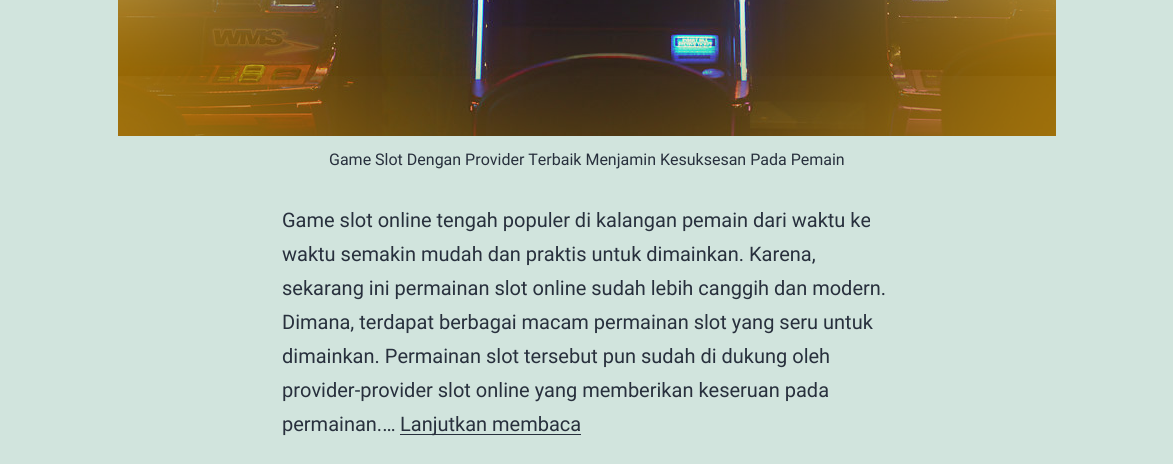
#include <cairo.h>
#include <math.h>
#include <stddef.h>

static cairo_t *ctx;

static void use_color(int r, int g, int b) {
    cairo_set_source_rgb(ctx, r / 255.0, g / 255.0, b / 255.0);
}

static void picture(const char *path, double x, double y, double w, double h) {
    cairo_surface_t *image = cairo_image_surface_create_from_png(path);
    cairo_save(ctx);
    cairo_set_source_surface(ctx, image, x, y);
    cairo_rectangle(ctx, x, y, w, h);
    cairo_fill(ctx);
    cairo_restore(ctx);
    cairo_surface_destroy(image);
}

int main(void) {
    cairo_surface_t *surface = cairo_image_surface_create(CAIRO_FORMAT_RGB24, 1173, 464);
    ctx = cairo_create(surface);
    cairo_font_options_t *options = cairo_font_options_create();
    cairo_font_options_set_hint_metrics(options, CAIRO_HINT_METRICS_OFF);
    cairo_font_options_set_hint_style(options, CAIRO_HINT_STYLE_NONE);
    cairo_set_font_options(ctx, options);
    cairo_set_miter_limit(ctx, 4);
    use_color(209, 228, 221);
    cairo_paint(ctx);
    picture("img1.png", 118, 0, 938, 136);
    cairo_select_font_face(ctx, "Roboto", CAIRO_FONT_SLANT_NORMAL, CAIRO_FONT_WEIGHT_NORMAL);
    cairo_set_font_size(ctx, 16);
    use_color(40, 48, 61);
    cairo_move_to(ctx, 329, 165);
    cairo_show_text(ctx, "Game Slot Dengan Provider Terbaik Menjamin Kesuksesan Pada Pemain");
    cairo_set_font_size(ctx, 20);
    cairo_move_to(ctx, 282, 227);
    cairo_show_text(ctx, "Game slot online tengah populer di kalangan pemain dari waktu ke");
    cairo_move_to(ctx, 282, 261);
    cairo_show_text(ctx, "waktu semakin mudah dan praktis untuk dimainkan. Karena,");
    cairo_move_to(ctx, 282, 295);
    cairo_show_text(ctx, "sekarang ini permainan slot online sudah lebih canggih dan modern.");
    cairo_move_to(ctx, 282, 329);
    cairo_show_text(ctx, "Dimana, terdapat berbagai macam permainan slot yang seru untuk");
    cairo_move_to(ctx, 282, 363);
    cairo_show_text(ctx, "dimainkan. Permainan slot tersebut pun sudah di dukung oleh");
    cairo_move_to(ctx, 282, 397);
    cairo_show_text(ctx, "provider-provider slot online yang memberikan keseruan pada");
    cairo_move_to(ctx, 282, 431);
    cairo_show_text(ctx, "permainan.…");
    cairo_rectangle(ctx, 400, 434, 181, 1);
    cairo_fill(ctx);
    cairo_move_to(ctx, 400, 431);
    cairo_show_text(ctx, "Lanjutkan membaca");
    cairo_surface_write_to_png(surface, "result.png");
    cairo_font_options_destroy(options);
    cairo_destroy(ctx);
    cairo_surface_destroy(surface);
    return 0;
}
